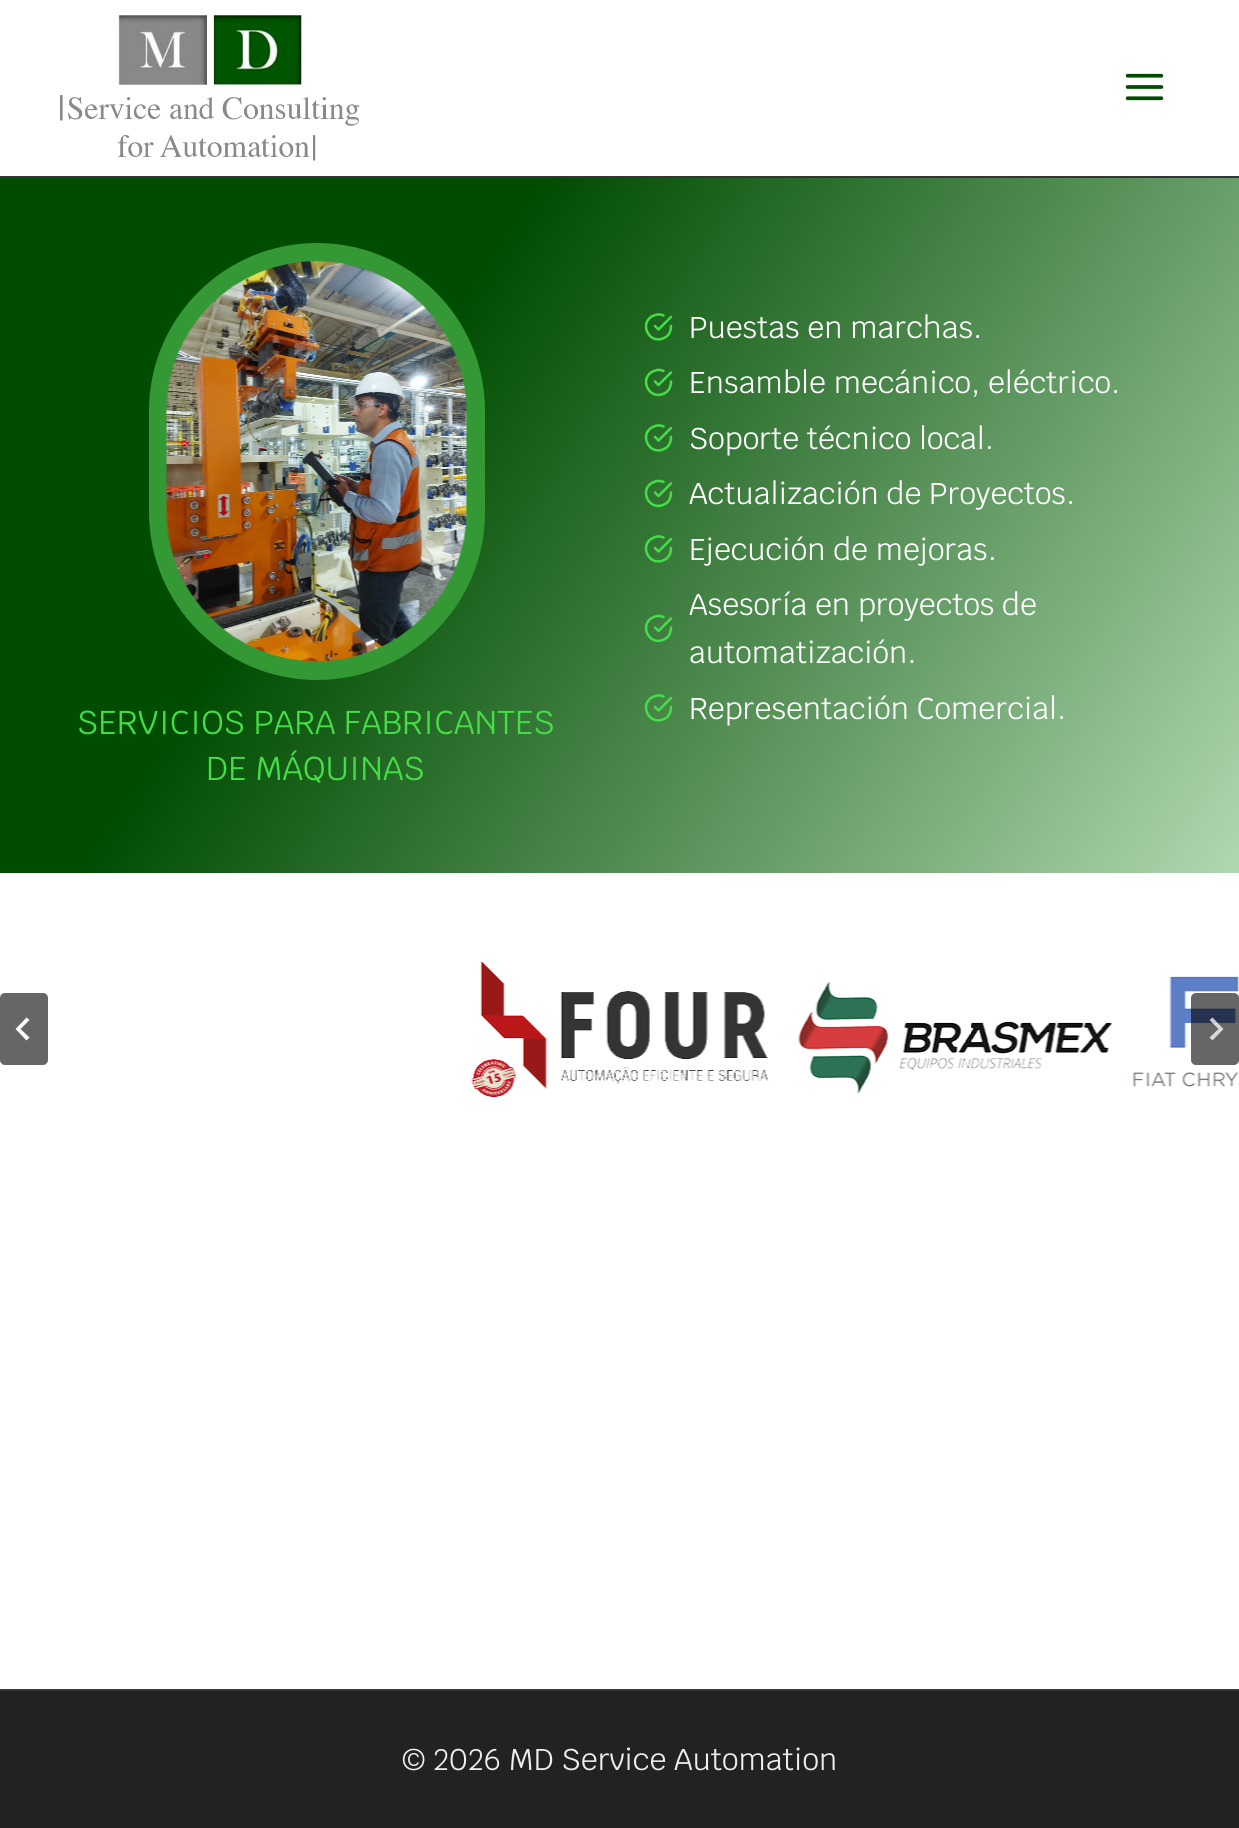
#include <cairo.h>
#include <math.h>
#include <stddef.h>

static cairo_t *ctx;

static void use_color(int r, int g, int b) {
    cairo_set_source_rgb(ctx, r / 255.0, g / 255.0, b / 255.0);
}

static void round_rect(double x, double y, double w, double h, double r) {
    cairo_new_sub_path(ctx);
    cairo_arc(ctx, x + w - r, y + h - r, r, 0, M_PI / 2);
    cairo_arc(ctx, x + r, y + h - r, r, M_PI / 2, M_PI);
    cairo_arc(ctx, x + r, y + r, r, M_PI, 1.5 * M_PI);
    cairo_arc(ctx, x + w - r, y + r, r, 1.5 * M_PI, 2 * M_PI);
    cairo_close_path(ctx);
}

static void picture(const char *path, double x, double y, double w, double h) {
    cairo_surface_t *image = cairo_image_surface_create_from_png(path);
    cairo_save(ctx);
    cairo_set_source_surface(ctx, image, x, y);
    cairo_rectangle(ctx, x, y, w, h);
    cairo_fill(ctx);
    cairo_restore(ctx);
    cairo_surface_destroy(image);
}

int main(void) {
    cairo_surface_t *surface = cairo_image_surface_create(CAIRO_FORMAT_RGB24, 1239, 1828);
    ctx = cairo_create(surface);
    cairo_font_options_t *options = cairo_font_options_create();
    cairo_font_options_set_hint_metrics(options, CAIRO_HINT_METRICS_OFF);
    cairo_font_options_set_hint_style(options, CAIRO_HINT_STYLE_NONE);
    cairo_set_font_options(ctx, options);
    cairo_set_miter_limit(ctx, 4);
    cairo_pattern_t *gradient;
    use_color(255, 255, 255);
    cairo_paint(ctx);
    use_color(53, 53, 53);
    cairo_rectangle(ctx, 0, 176, 1239, 2);
    cairo_fill(ctx);
    picture("img1.png", 60, 15, 300, 146);
    picture("img2.png", 1125, 73, 39, 28);
    gradient = cairo_pattern_create_linear(32, 129, 1207, 921);
    cairo_pattern_add_color_stop_rgba(gradient, 0.32, 0, 0.298, 0.004, 1);
    cairo_pattern_add_color_stop_rgba(gradient, 1, 0.69, 0.847, 0.694, 1);
    cairo_set_source(ctx, gradient);
    cairo_pattern_destroy(gradient);
    cairo_rectangle(ctx, 0, 178, 1239, 695);
    cairo_fill(ctx);
    cairo_new_path(ctx);
    cairo_move_to(ctx, 671, 326);
    cairo_curve_to(ctx, 671, 331, 669, 336, 664, 338);
    cairo_curve_to(ctx, 648.5, 345.5, 638, 321.5, 654, 315.5);
    cairo_curve_to(ctx, 657, 314, 660.5, 314, 663.5, 315.5);
    cairo_move_to(ctx, 671, 317);
    cairo_line_to(ctx, 658.5, 329.5);
    cairo_line_to(ctx, 655, 326);
    use_color(69, 222, 71);
    cairo_set_line_width(ctx, 2.5);
    cairo_set_line_cap(ctx, CAIRO_LINE_CAP_ROUND);
    cairo_set_line_join(ctx, CAIRO_LINE_JOIN_ROUND);
    cairo_stroke(ctx);
    cairo_select_font_face(ctx, "Krub", CAIRO_FONT_SLANT_NORMAL, CAIRO_FONT_WEIGHT_NORMAL);
    cairo_set_font_size(ctx, 30);
    use_color(255, 255, 255);
    cairo_move_to(ctx, 689, 338);
    cairo_show_text(ctx, "Puestas en marchas.");
    cairo_new_path(ctx);
    cairo_move_to(ctx, 671, 381.5);
    cairo_curve_to(ctx, 671, 386.5, 669, 391.5, 664, 393.5);
    cairo_curve_to(ctx, 648.5, 401, 638, 377, 654, 371);
    cairo_curve_to(ctx, 657, 369.5, 660.5, 369.5, 663.5, 371);
    cairo_move_to(ctx, 671, 372.5);
    cairo_line_to(ctx, 658.5, 385);
    cairo_line_to(ctx, 655, 381.5);
    use_color(69, 222, 71);
    cairo_stroke(ctx);
    use_color(255, 255, 255);
    cairo_move_to(ctx, 689, 393);
    cairo_show_text(ctx, "Ensamble mecánico, eléctrico.");
    cairo_new_path(ctx);
    cairo_move_to(ctx, 671, 437);
    cairo_curve_to(ctx, 671, 442, 669, 447, 664, 449);
    cairo_curve_to(ctx, 648.5, 456.5, 638, 432.5, 654, 426.5);
    cairo_curve_to(ctx, 657, 425, 660.5, 425, 663.5, 426.5);
    cairo_move_to(ctx, 671, 428);
    cairo_line_to(ctx, 658.5, 440.5);
    cairo_line_to(ctx, 655, 437);
    use_color(69, 222, 71);
    cairo_stroke(ctx);
    use_color(255, 255, 255);
    cairo_move_to(ctx, 689, 449);
    cairo_show_text(ctx, "Soporte técnico local.");
    cairo_new_path(ctx);
    cairo_move_to(ctx, 671, 492.5);
    cairo_curve_to(ctx, 671, 497.5, 669, 502.5, 664, 504.5);
    cairo_curve_to(ctx, 648.5, 512, 638, 488, 654, 482);
    cairo_curve_to(ctx, 657, 480.5, 660.5, 480.5, 663.5, 482);
    cairo_move_to(ctx, 671, 483.5);
    cairo_line_to(ctx, 658.5, 496);
    cairo_line_to(ctx, 655, 492.5);
    use_color(69, 222, 71);
    cairo_stroke(ctx);
    use_color(255, 255, 255);
    cairo_move_to(ctx, 689, 504);
    cairo_show_text(ctx, "Actualización de Proyectos.");
    cairo_new_path(ctx);
    cairo_move_to(ctx, 671, 548);
    cairo_curve_to(ctx, 671, 553, 669, 558, 664, 560);
    cairo_curve_to(ctx, 648.5, 567.5, 638, 543.5, 654, 537.5);
    cairo_curve_to(ctx, 657, 536, 660.5, 536, 663.5, 537.5);
    cairo_move_to(ctx, 671, 539);
    cairo_line_to(ctx, 658.5, 551.5);
    cairo_line_to(ctx, 655, 548);
    use_color(69, 222, 71);
    cairo_stroke(ctx);
    use_color(255, 255, 255);
    cairo_move_to(ctx, 689, 560);
    cairo_show_text(ctx, "Ejecución de mejoras.");
    cairo_new_path(ctx);
    cairo_move_to(ctx, 671, 627.5);
    cairo_curve_to(ctx, 671, 632.5, 669, 637.5, 664, 639.5);
    cairo_curve_to(ctx, 648.5, 647, 638, 623, 654, 617);
    cairo_curve_to(ctx, 657, 615.5, 660.5, 615.5, 663.5, 617);
    cairo_move_to(ctx, 671, 618.5);
    cairo_line_to(ctx, 658.5, 631);
    cairo_line_to(ctx, 655, 627.5);
    use_color(69, 222, 71);
    cairo_stroke(ctx);
    use_color(255, 255, 255);
    cairo_move_to(ctx, 689, 615);
    cairo_show_text(ctx, "Asesoría en proyectos de");
    cairo_move_to(ctx, 689, 663);
    cairo_show_text(ctx, "automatización.");
    cairo_new_path(ctx);
    cairo_move_to(ctx, 671, 707);
    cairo_curve_to(ctx, 671, 712, 669, 717, 664, 719);
    cairo_curve_to(ctx, 648.5, 726.5, 638, 702.5, 654, 696.5);
    cairo_curve_to(ctx, 657, 695, 660.5, 695, 663.5, 696.5);
    cairo_move_to(ctx, 671, 698);
    cairo_line_to(ctx, 658.5, 710.5);
    cairo_line_to(ctx, 655, 707);
    use_color(69, 222, 71);
    cairo_stroke(ctx);
    use_color(255, 255, 255);
    cairo_move_to(ctx, 689, 719);
    cairo_show_text(ctx, "Representación Comercial.");
    use_color(52, 153, 53);
    round_rect(149, 243, 336, 437, 168);
    cairo_fill(ctx);
    picture("img3.png", 166, 261, 301, 401);
    cairo_set_font_size(ctx, 33);
    use_color(69, 222, 71);
    cairo_move_to(ctx, 77, 734);
    cairo_show_text(ctx, "SERVICIOS PARA FABRICANTES");
    cairo_move_to(ctx, 206, 780);
    cairo_show_text(ctx, "DE MÁQUINAS");
    picture("img4.png", 471, 961, 298, 136);
    picture("img5.png", 798, 981, 314, 113);
    picture("img6.png", 1132, 976, 107, 111);
    use_color(102, 102, 102);
    round_rect(0, 993, 48, 72, 5);
    cairo_fill(ctx);
    use_color(255, 255, 255);
    cairo_new_path(ctx);
    cairo_move_to(ctx, 26.5, 1017.5);
    cairo_line_to(ctx, 29.5, 1020);
    cairo_line_to(ctx, 20.5, 1029);
    cairo_line_to(ctx, 29.5, 1037.5);
    cairo_line_to(ctx, 26.5, 1040.5);
    cairo_line_to(ctx, 15.5, 1029);
    cairo_close_path(ctx);
    cairo_fill(ctx);
    cairo_set_source_rgba(ctx, 0, 0, 0, 0.6);
    round_rect(1191, 993, 48, 72, 5);
    cairo_fill(ctx);
    cairo_set_source_rgba(ctx, 1, 1, 1, 0.75);
    cairo_new_path(ctx);
    cairo_move_to(ctx, 1212.5, 1017.5);
    cairo_line_to(ctx, 1209.5, 1020);
    cairo_line_to(ctx, 1218.5, 1029);
    cairo_line_to(ctx, 1209.5, 1037.5);
    cairo_line_to(ctx, 1212.5, 1040.5);
    cairo_line_to(ctx, 1223.5, 1029);
    cairo_close_path(ctx);
    cairo_fill(ctx);
    use_color(34, 34, 34);
    cairo_rectangle(ctx, 0, 1691, 1239, 137);
    cairo_fill(ctx);
    use_color(53, 53, 53);
    cairo_rectangle(ctx, 0, 1689, 1239, 2);
    cairo_fill(ctx);
    cairo_set_font_size(ctx, 30);
    use_color(238, 238, 238);
    cairo_move_to(ctx, 402, 1770);
    cairo_show_text(ctx, "© 2026 MD Service Automation");
    cairo_surface_write_to_png(surface, "result.png");
    cairo_font_options_destroy(options);
    cairo_destroy(ctx);
    cairo_surface_destroy(surface);
    return 0;
}
